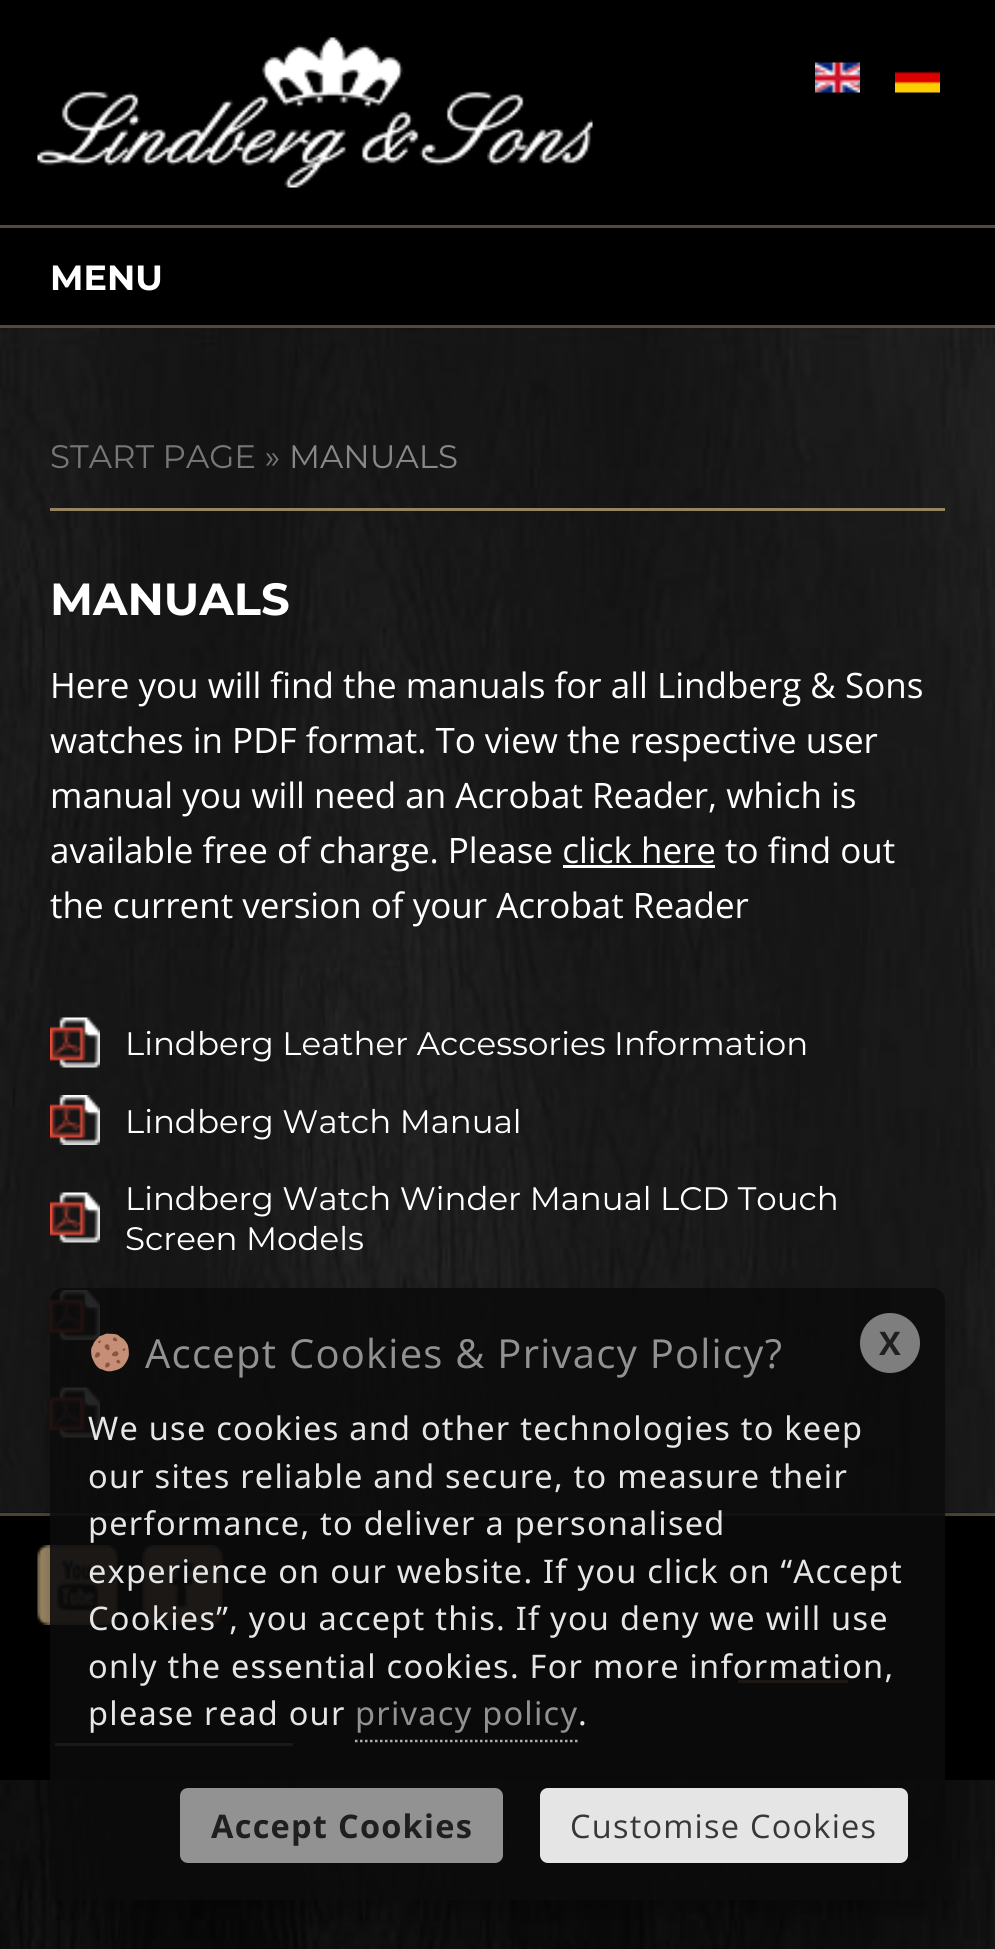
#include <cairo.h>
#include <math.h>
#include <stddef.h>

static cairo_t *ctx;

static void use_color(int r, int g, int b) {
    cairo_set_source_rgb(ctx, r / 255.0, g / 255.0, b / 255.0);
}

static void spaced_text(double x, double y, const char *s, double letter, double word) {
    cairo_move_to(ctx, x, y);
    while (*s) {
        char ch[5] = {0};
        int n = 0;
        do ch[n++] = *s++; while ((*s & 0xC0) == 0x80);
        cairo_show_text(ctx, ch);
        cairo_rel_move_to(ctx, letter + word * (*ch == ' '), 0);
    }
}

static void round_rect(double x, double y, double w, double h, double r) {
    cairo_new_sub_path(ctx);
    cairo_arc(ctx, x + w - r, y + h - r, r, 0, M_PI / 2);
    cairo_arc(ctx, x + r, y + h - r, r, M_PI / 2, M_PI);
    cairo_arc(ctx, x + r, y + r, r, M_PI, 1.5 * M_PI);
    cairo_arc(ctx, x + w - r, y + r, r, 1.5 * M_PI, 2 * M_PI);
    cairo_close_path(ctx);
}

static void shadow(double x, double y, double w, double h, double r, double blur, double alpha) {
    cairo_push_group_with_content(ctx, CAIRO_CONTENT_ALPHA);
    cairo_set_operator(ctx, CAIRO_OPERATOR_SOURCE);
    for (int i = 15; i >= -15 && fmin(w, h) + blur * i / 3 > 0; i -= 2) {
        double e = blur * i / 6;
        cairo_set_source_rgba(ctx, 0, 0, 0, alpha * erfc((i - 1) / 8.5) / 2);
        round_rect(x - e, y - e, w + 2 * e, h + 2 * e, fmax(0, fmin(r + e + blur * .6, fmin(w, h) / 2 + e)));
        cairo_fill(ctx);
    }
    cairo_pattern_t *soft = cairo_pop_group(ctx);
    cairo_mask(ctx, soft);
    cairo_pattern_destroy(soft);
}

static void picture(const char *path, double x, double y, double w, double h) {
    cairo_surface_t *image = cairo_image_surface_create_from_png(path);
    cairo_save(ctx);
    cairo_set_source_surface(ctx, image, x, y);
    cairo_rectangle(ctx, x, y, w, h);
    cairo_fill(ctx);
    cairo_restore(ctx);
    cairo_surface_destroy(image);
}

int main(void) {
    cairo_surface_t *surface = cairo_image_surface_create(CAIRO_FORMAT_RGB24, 995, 1949);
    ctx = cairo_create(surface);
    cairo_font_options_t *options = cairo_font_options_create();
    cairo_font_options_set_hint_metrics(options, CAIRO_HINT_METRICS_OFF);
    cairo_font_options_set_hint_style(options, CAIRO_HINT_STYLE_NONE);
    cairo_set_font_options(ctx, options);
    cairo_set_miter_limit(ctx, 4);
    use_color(255, 255, 255);
    cairo_paint(ctx);
    picture("img1.png", 0, 1512, 995, 437);
    use_color(0, 0, 0);
    cairo_rectangle(ctx, 0, 0, 995, 325);
    cairo_fill(ctx);
    use_color(83, 73, 56);
    cairo_rectangle(ctx, 0, 325, 995, 3);
    cairo_fill(ctx);
    picture("img2.png", 37, 37, 556, 151);
    picture("img3.png", 815, 62, 45, 31);
    picture("img4.png", 895, 71, 45, 22);
    cairo_rectangle(ctx, 0, 225, 995, 3);
    cairo_fill(ctx);
    cairo_select_font_face(ctx, "Montserrat", CAIRO_FONT_SLANT_NORMAL, CAIRO_FONT_WEIGHT_BOLD);
    cairo_set_font_size(ctx, 35);
    use_color(255, 255, 255);
    cairo_move_to(ctx, 50, 290);
    cairo_show_text(ctx, "MENU");
    picture("img5.png", 0, 328, 995, 1185);
    use_color(151, 132, 98);
    cairo_rectangle(ctx, 50, 508, 895, 3);
    cairo_fill(ctx);
    cairo_select_font_face(ctx, "Montserrat", CAIRO_FONT_SLANT_NORMAL, CAIRO_FONT_WEIGHT_NORMAL);
    cairo_set_font_size(ctx, 32.5);
    use_color(119, 119, 119);
    cairo_move_to(ctx, 50, 468);
    cairo_show_text(ctx, "START PAGE »");
    use_color(136, 136, 136);
    cairo_move_to(ctx, 289, 468);
    cairo_show_text(ctx, "MANUALS");
    cairo_select_font_face(ctx, "Montserrat", CAIRO_FONT_SLANT_NORMAL, CAIRO_FONT_WEIGHT_BOLD);
    cairo_set_font_size(ctx, 45);
    use_color(255, 255, 255);
    cairo_move_to(ctx, 50, 615);
    cairo_show_text(ctx, "MANUALS");
    cairo_select_font_face(ctx, "Open Sans", CAIRO_FONT_SLANT_NORMAL, CAIRO_FONT_WEIGHT_NORMAL);
    cairo_set_font_size(ctx, 35);
    cairo_move_to(ctx, 50, 698);
    cairo_show_text(ctx, "Here you will find the manuals for all Lindberg & Sons");
    cairo_move_to(ctx, 50, 753);
    cairo_show_text(ctx, "watches in PDF format. To view the respective user");
    cairo_move_to(ctx, 50, 808);
    cairo_show_text(ctx, "manual you will need an Acrobat Reader, which is");
    cairo_move_to(ctx, 50, 863);
    cairo_show_text(ctx, "available free of charge. Please click here to find out");
    cairo_rectangle(ctx, 563, 865, 152, 3);
    cairo_fill(ctx);
    cairo_move_to(ctx, 50, 918);
    cairo_show_text(ctx, "the current version of your Acrobat Reader");
    picture("img6.png", 50, 1017, 50, 51);
    cairo_select_font_face(ctx, "Montserrat", CAIRO_FONT_SLANT_NORMAL, CAIRO_FONT_WEIGHT_NORMAL);
    cairo_set_font_size(ctx, 32.5);
    cairo_move_to(ctx, 125, 1055);
    cairo_show_text(ctx, "Lindberg Leather Accessories Information");
    picture("img7.png", 50, 1095, 50, 50);
    cairo_move_to(ctx, 125, 1133);
    cairo_show_text(ctx, "Lindberg Watch Manual");
    picture("img8.png", 50, 1192, 50, 51);
    cairo_move_to(ctx, 125, 1210);
    cairo_show_text(ctx, "Lindberg Watch Winder Manual LCD Touch");
    cairo_move_to(ctx, 125, 1250);
    cairo_show_text(ctx, "Screen Models");
    picture("img9.png", 50, 1290, 50, 50);
    picture("img10.png", 50, 1387, 50, 51);
    use_color(0, 0, 0);
    cairo_rectangle(ctx, 0, 1516, 995, 264);
    cairo_fill(ctx);
    use_color(76, 66, 49);
    cairo_rectangle(ctx, 0, 1513, 995, 3);
    cairo_fill(ctx);
    picture("img12.png", 37, 1545, 81, 80);
    picture("img13.png", 142, 1545, 81, 80);
    use_color(151, 132, 98);
    cairo_rectangle(ctx, 738, 1680, 110, 3);
    cairo_fill(ctx);
    cairo_rectangle(ctx, 55, 1743, 238, 3);
    cairo_fill(ctx);
    cairo_save(ctx);
    cairo_set_fill_rule(ctx, CAIRO_FILL_RULE_EVEN_ODD);
    cairo_new_path(ctx);
    cairo_move_to(ctx, 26, 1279);
    cairo_line_to(ctx, 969, 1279);
    cairo_line_to(ctx, 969, 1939);
    cairo_line_to(ctx, 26, 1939);
    cairo_close_path(ctx);
    cairo_move_to(ctx, 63, 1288);
    cairo_line_to(ctx, 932, 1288);
    cairo_curve_to(ctx, 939, 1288, 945, 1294, 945, 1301);
    cairo_line_to(ctx, 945, 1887);
    cairo_curve_to(ctx, 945, 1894, 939, 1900, 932, 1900);
    cairo_line_to(ctx, 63, 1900);
    cairo_curve_to(ctx, 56, 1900, 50, 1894, 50, 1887);
    cairo_line_to(ctx, 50, 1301);
    cairo_curve_to(ctx, 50, 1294, 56, 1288, 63, 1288);
    cairo_close_path(ctx);
    cairo_clip(ctx);
    use_color(0, 0, 0);
    shadow(50, 1303, 895, 612, 13, 7.5, 0.22);
    cairo_restore(ctx);
    cairo_set_source_rgba(ctx, 0.047, 0.047, 0.051, 0.89);
    round_rect(50, 1288, 895, 612, 13);
    cairo_fill(ctx);
    picture("img11.png", 91, 1333, 38, 39);
    cairo_select_font_face(ctx, "Open Sans", CAIRO_FONT_SLANT_NORMAL, CAIRO_FONT_WEIGHT_NORMAL);
    cairo_set_font_size(ctx, 40);
    use_color(146, 146, 146);
    spaced_text(145, 1368, "Accept Cookies & Privacy Policy?", 1.25, 0);
    use_color(126, 126, 126);
    cairo_new_path(ctx);
    cairo_arc(ctx, 890, 1343, 30, 0, 2 * M_PI);
    cairo_fill(ctx);
    cairo_select_font_face(ctx, "Open Sans", CAIRO_FONT_SLANT_NORMAL, CAIRO_FONT_WEIGHT_BOLD);
    cairo_set_font_size(ctx, 32.5);
    use_color(31, 31, 31);
    spaced_text(879, 1355, "X", 1.25, 0);
    cairo_select_font_face(ctx, "Noto Sans", CAIRO_FONT_SLANT_NORMAL, CAIRO_FONT_WEIGHT_NORMAL);
    use_color(230, 230, 230);
    spaced_text(88, 1440, "We use cookies and other technologies to keep", 1.25, 0);
    spaced_text(88, 1488, "our sites reliable and secure, to measure their", 1.25, 0);
    spaced_text(88, 1535, "performance, to deliver a personalised", 1.25, 0);
    spaced_text(88, 1583, "experience on our website. If you click on “Accept", 1.25, 0);
    spaced_text(88, 1630, "Cookies”, you accept this. If you deny we will use", 1.25, 0);
    spaced_text(88, 1678, "only the essential cookies. For more information,", 1.25, 0);
    spaced_text(88, 1725, "please read our", 1.25, 0);
    use_color(146, 146, 146);
    spaced_text(355, 1725, "privacy policy", 1.25, 0);
    cairo_new_path(ctx);
    cairo_move_to(ctx, 355, 1741);
    cairo_line_to(ctx, 577.5, 1741);
    use_color(174, 174, 174);
    cairo_set_line_width(ctx, 2.5);
    cairo_set_dash(ctx, (double[]){2.5, 2.5}, 2, 0);
    cairo_stroke(ctx);
    use_color(230, 230, 230);
    spaced_text(578, 1725, ".", 1.25, 0);
    use_color(146, 146, 146);
    round_rect(180, 1788, 323, 75, 8);
    cairo_fill(ctx);
    cairo_select_font_face(ctx, "Open Sans", CAIRO_FONT_SLANT_NORMAL, CAIRO_FONT_WEIGHT_BOLD);
    use_color(31, 31, 31);
    spaced_text(211, 1838, "Accept Cookies", 1.25, 0);
    use_color(229, 229, 229);
    round_rect(540, 1788, 368, 75, 8);
    cairo_fill(ctx);
    cairo_select_font_face(ctx, "Open Sans", CAIRO_FONT_SLANT_NORMAL, CAIRO_FONT_WEIGHT_NORMAL);
    use_color(55, 55, 55);
    spaced_text(570, 1838, "Customise Cookies", 1.25, 0);
    cairo_surface_write_to_png(surface, "result.png");
    cairo_font_options_destroy(options);
    cairo_destroy(ctx);
    cairo_surface_destroy(surface);
    return 0;
}
